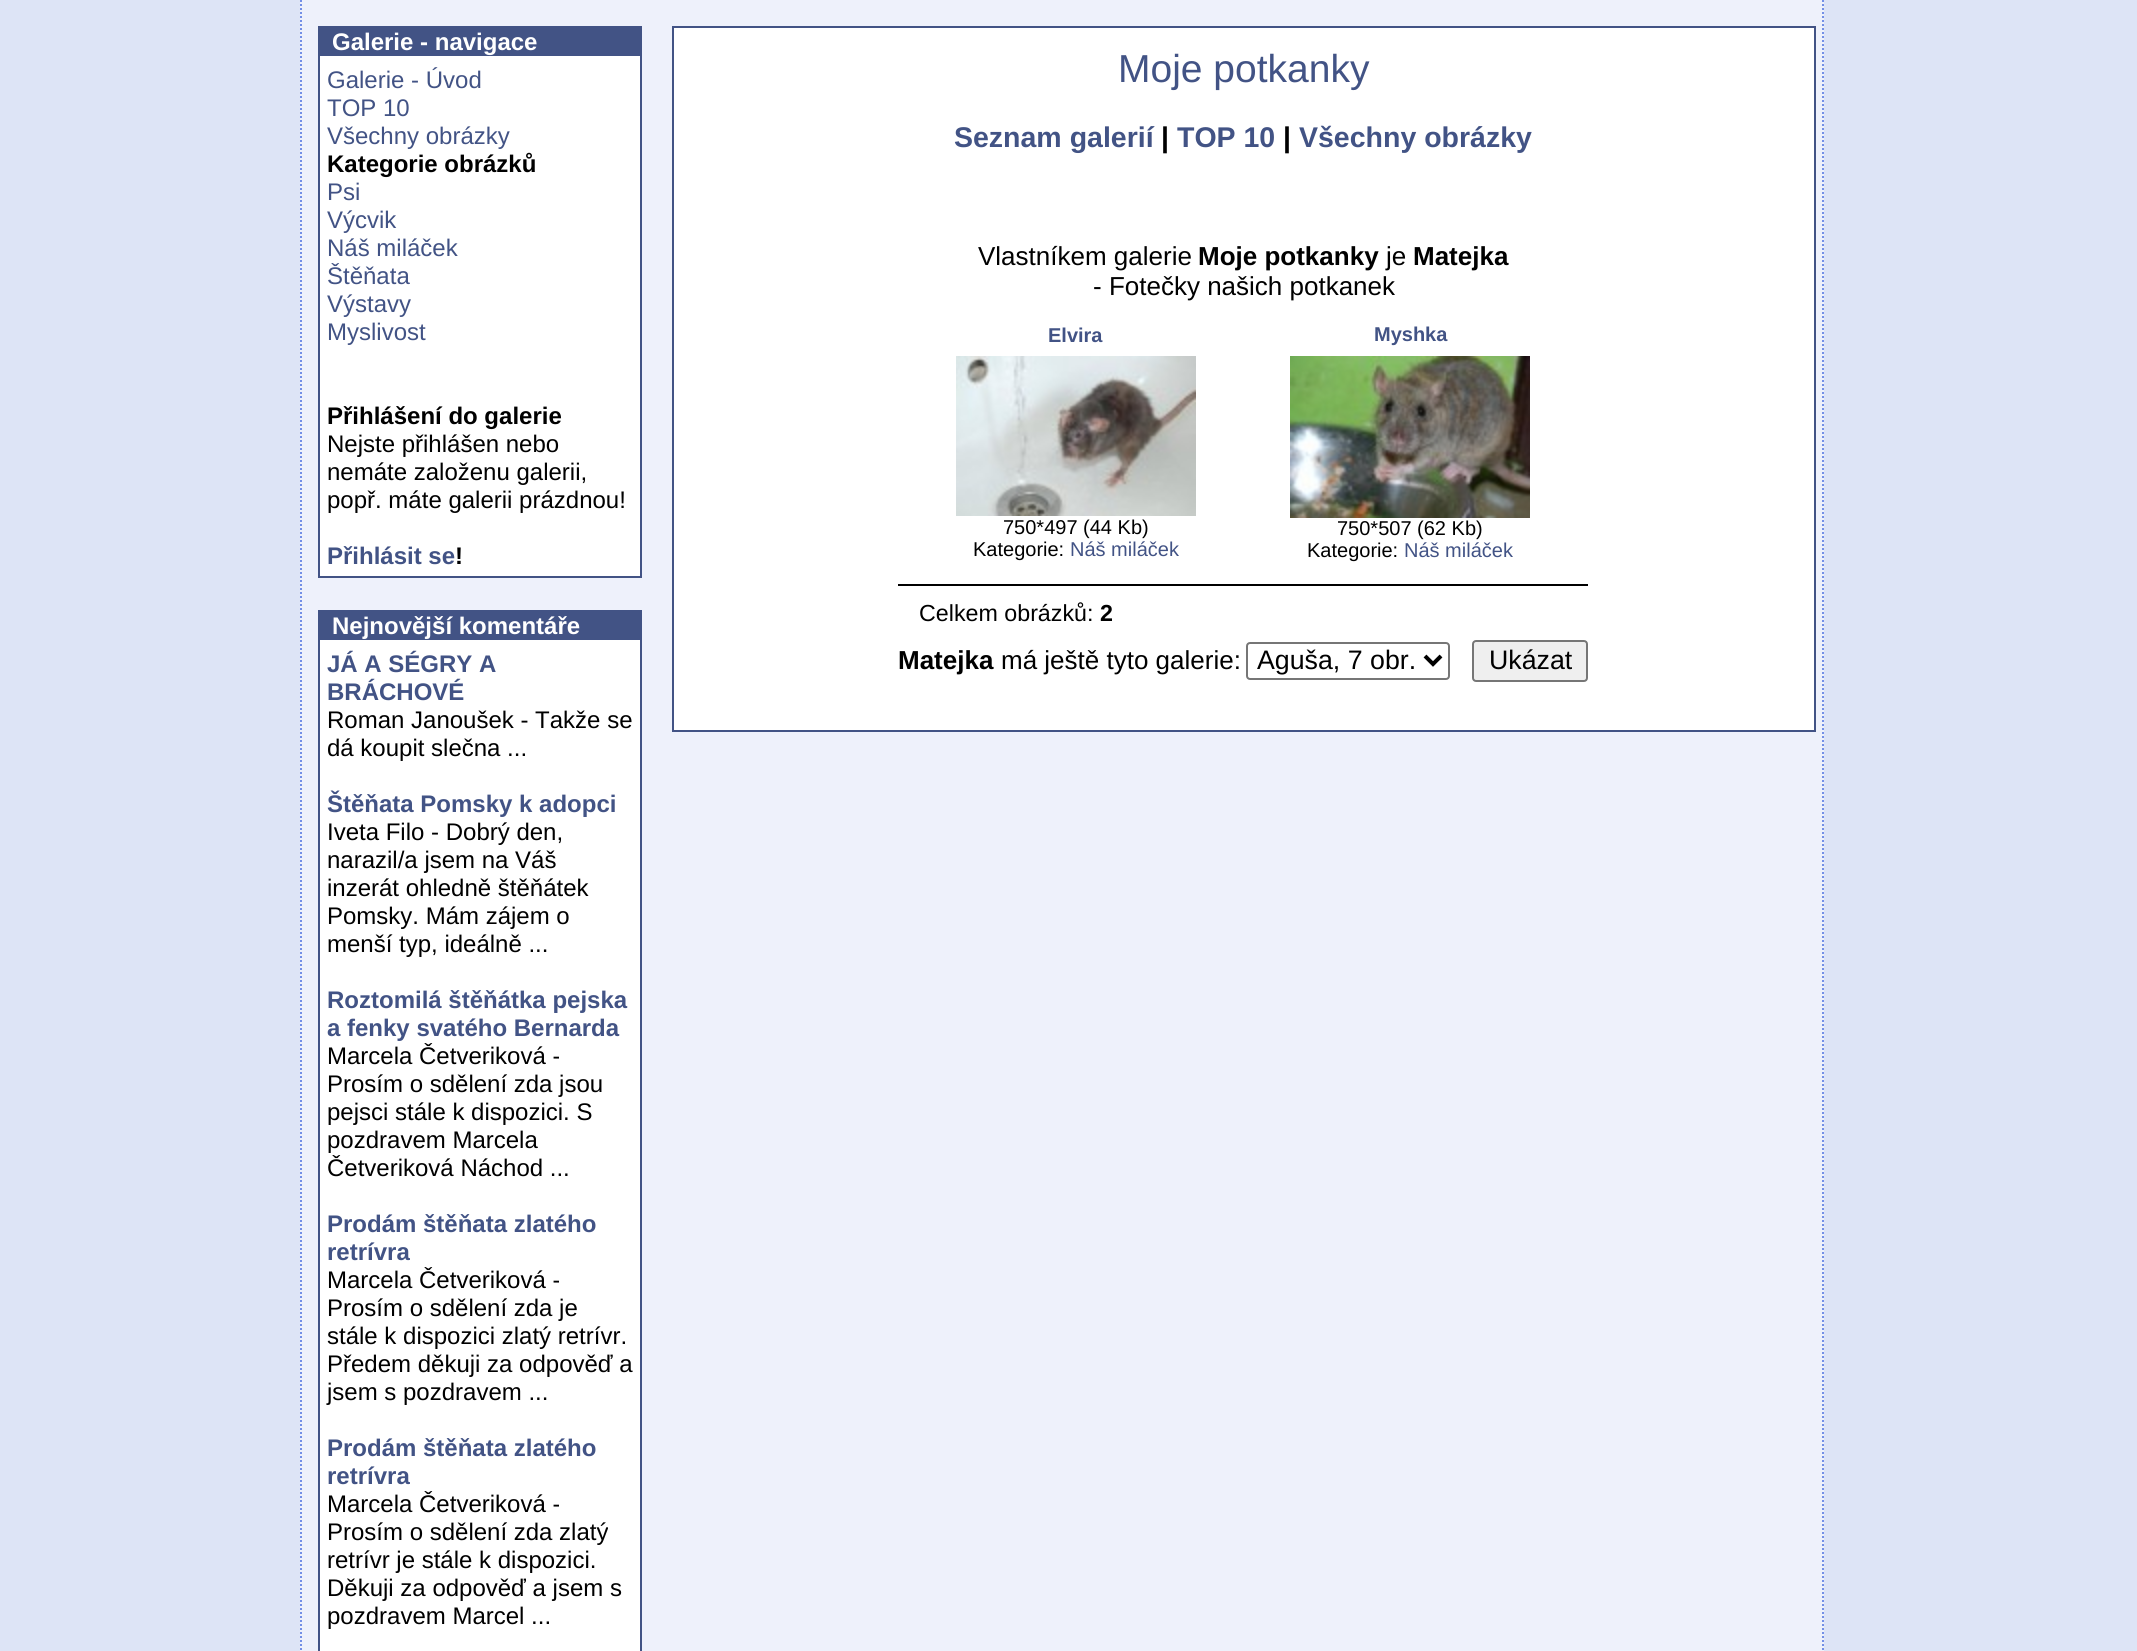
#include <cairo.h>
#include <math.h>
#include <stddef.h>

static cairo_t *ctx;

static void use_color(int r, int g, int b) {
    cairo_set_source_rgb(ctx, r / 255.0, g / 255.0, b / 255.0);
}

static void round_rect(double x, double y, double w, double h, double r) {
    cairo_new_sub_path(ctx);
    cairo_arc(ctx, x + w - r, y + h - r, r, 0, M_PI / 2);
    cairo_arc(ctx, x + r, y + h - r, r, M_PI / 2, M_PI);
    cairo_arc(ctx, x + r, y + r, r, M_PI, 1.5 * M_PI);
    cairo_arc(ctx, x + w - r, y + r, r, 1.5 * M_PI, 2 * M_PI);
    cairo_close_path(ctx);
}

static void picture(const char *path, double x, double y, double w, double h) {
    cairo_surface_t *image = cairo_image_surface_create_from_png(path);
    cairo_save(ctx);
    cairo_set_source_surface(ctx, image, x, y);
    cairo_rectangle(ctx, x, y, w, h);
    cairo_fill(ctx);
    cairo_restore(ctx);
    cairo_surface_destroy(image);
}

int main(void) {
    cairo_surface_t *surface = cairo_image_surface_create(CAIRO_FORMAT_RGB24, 2137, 1651);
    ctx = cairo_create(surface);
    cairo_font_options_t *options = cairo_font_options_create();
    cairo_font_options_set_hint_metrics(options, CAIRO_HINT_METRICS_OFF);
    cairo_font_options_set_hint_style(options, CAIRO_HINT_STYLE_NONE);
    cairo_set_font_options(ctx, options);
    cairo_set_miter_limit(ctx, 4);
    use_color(221, 228, 246);
    cairo_paint(ctx);
    use_color(238, 241, 251);
    cairo_rectangle(ctx, 300, 0, 1524, 1651);
    cairo_fill(ctx);
    cairo_new_path(ctx);
    cairo_move_to(ctx, 1823, -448);
    cairo_line_to(ctx, 1823, 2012);
    use_color(115, 143, 230);
    cairo_set_dash(ctx, (double[]){2, 2}, 2, 0);
    cairo_stroke(ctx);
    cairo_new_path(ctx);
    cairo_move_to(ctx, 301, -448);
    cairo_line_to(ctx, 301, 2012);
    cairo_stroke(ctx);
    use_color(255, 255, 255);
    cairo_rectangle(ctx, 320, 56, 320, 520);
    cairo_fill(ctx);
    cairo_rectangle(ctx, 319, 27, 322, 550);
    use_color(66, 83, 133);
    cairo_set_dash(ctx, NULL, 0, 0);
    cairo_stroke(ctx);
    cairo_rectangle(ctx, 320, 28, 320, 28);
    cairo_fill(ctx);
    cairo_select_font_face(ctx, "Liberation Sans", CAIRO_FONT_SLANT_NORMAL, CAIRO_FONT_WEIGHT_BOLD);
    cairo_set_font_size(ctx, 24);
    use_color(255, 255, 255);
    cairo_move_to(ctx, 332, 50);
    cairo_show_text(ctx, "Galerie - navigace");
    cairo_select_font_face(ctx, "Liberation Sans", CAIRO_FONT_SLANT_NORMAL, CAIRO_FONT_WEIGHT_NORMAL);
    use_color(66, 83, 133);
    cairo_move_to(ctx, 327, 88);
    cairo_show_text(ctx, "Galerie - Úvod");
    cairo_move_to(ctx, 327, 116);
    cairo_show_text(ctx, "TOP 10");
    cairo_move_to(ctx, 327, 144);
    cairo_show_text(ctx, "Všechny obrázky");
    cairo_select_font_face(ctx, "Liberation Sans", CAIRO_FONT_SLANT_NORMAL, CAIRO_FONT_WEIGHT_BOLD);
    use_color(0, 0, 0);
    cairo_move_to(ctx, 327, 172);
    cairo_show_text(ctx, "Kategorie obrázků");
    cairo_select_font_face(ctx, "Liberation Sans", CAIRO_FONT_SLANT_NORMAL, CAIRO_FONT_WEIGHT_NORMAL);
    use_color(66, 83, 133);
    cairo_move_to(ctx, 327, 200);
    cairo_show_text(ctx, "Psi");
    cairo_move_to(ctx, 327, 228);
    cairo_show_text(ctx, "Výcvik");
    cairo_move_to(ctx, 327, 256);
    cairo_show_text(ctx, "Náš miláček");
    cairo_move_to(ctx, 327, 284);
    cairo_show_text(ctx, "Štěňata");
    cairo_move_to(ctx, 327, 312);
    cairo_show_text(ctx, "Výstavy");
    cairo_move_to(ctx, 327, 340);
    cairo_show_text(ctx, "Myslivost");
    cairo_select_font_face(ctx, "Liberation Sans", CAIRO_FONT_SLANT_NORMAL, CAIRO_FONT_WEIGHT_BOLD);
    use_color(0, 0, 0);
    cairo_move_to(ctx, 327, 424);
    cairo_show_text(ctx, "Přihlášení do galerie");
    cairo_select_font_face(ctx, "Liberation Sans", CAIRO_FONT_SLANT_NORMAL, CAIRO_FONT_WEIGHT_NORMAL);
    cairo_move_to(ctx, 327, 452);
    cairo_show_text(ctx, "Nejste přihlášen nebo");
    cairo_move_to(ctx, 327, 480);
    cairo_show_text(ctx, "nemáte založenu galerii,");
    cairo_move_to(ctx, 327, 508);
    cairo_show_text(ctx, "popř. máte galerii prázdnou!");
    cairo_select_font_face(ctx, "Liberation Sans", CAIRO_FONT_SLANT_NORMAL, CAIRO_FONT_WEIGHT_BOLD);
    use_color(66, 83, 133);
    cairo_move_to(ctx, 327, 564);
    cairo_show_text(ctx, "Přihlásit se");
    use_color(0, 0, 0);
    cairo_move_to(ctx, 455, 564);
    cairo_show_text(ctx, "!");
    use_color(255, 255, 255);
    cairo_rectangle(ctx, 320, 640, 320, 1011);
    cairo_fill(ctx);
    cairo_rectangle(ctx, 319, 611, 322, 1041);
    use_color(66, 83, 133);
    cairo_stroke(ctx);
    cairo_rectangle(ctx, 320, 612, 320, 28);
    cairo_fill(ctx);
    use_color(255, 255, 255);
    cairo_move_to(ctx, 332, 634);
    cairo_show_text(ctx, "Nejnovější komentáře");
    use_color(66, 83, 133);
    cairo_move_to(ctx, 327, 672);
    cairo_show_text(ctx, "JÁ A SÉGRY A");
    cairo_move_to(ctx, 327, 700);
    cairo_show_text(ctx, "BRÁCHOVÉ");
    cairo_select_font_face(ctx, "Liberation Sans", CAIRO_FONT_SLANT_NORMAL, CAIRO_FONT_WEIGHT_NORMAL);
    use_color(0, 0, 0);
    cairo_move_to(ctx, 327, 728);
    cairo_show_text(ctx, "Roman Janoušek - Takže se");
    cairo_move_to(ctx, 327, 756);
    cairo_show_text(ctx, "dá koupit slečna ...");
    cairo_select_font_face(ctx, "Liberation Sans", CAIRO_FONT_SLANT_NORMAL, CAIRO_FONT_WEIGHT_BOLD);
    use_color(66, 83, 133);
    cairo_move_to(ctx, 327, 812);
    cairo_show_text(ctx, "Štěňata Pomsky k adopci");
    cairo_select_font_face(ctx, "Liberation Sans", CAIRO_FONT_SLANT_NORMAL, CAIRO_FONT_WEIGHT_NORMAL);
    use_color(0, 0, 0);
    cairo_move_to(ctx, 327, 840);
    cairo_show_text(ctx, "Iveta Filo - Dobrý den,");
    cairo_move_to(ctx, 327, 868);
    cairo_show_text(ctx, "narazil/a jsem na Váš");
    cairo_move_to(ctx, 327, 896);
    cairo_show_text(ctx, "inzerát ohledně štěňátek");
    cairo_move_to(ctx, 327, 924);
    cairo_show_text(ctx, "Pomsky. Mám zájem o");
    cairo_move_to(ctx, 327, 952);
    cairo_show_text(ctx, "menší typ, ideálně ...");
    cairo_select_font_face(ctx, "Liberation Sans", CAIRO_FONT_SLANT_NORMAL, CAIRO_FONT_WEIGHT_BOLD);
    use_color(66, 83, 133);
    cairo_move_to(ctx, 327, 1008);
    cairo_show_text(ctx, "Roztomilá štěňátka pejska");
    cairo_move_to(ctx, 327, 1036);
    cairo_show_text(ctx, "a fenky svatého Bernarda");
    cairo_select_font_face(ctx, "Liberation Sans", CAIRO_FONT_SLANT_NORMAL, CAIRO_FONT_WEIGHT_NORMAL);
    use_color(0, 0, 0);
    cairo_move_to(ctx, 327, 1064);
    cairo_show_text(ctx, "Marcela Četveriková -");
    cairo_move_to(ctx, 327, 1092);
    cairo_show_text(ctx, "Prosím o sdělení zda jsou");
    cairo_move_to(ctx, 327, 1120);
    cairo_show_text(ctx, "pejsci stále k dispozici. S");
    cairo_move_to(ctx, 327, 1148);
    cairo_show_text(ctx, "pozdravem Marcela");
    cairo_move_to(ctx, 327, 1176);
    cairo_show_text(ctx, "Četveriková Náchod ...");
    cairo_select_font_face(ctx, "Liberation Sans", CAIRO_FONT_SLANT_NORMAL, CAIRO_FONT_WEIGHT_BOLD);
    use_color(66, 83, 133);
    cairo_move_to(ctx, 327, 1232);
    cairo_show_text(ctx, "Prodám štěňata zlatého");
    cairo_move_to(ctx, 327, 1260);
    cairo_show_text(ctx, "retrívra");
    cairo_select_font_face(ctx, "Liberation Sans", CAIRO_FONT_SLANT_NORMAL, CAIRO_FONT_WEIGHT_NORMAL);
    use_color(0, 0, 0);
    cairo_move_to(ctx, 327, 1288);
    cairo_show_text(ctx, "Marcela Četveriková -");
    cairo_move_to(ctx, 327, 1316);
    cairo_show_text(ctx, "Prosím o sdělení zda je");
    cairo_move_to(ctx, 327, 1344);
    cairo_show_text(ctx, "stále k dispozici zlatý retrívr.");
    cairo_move_to(ctx, 327, 1372);
    cairo_show_text(ctx, "Předem děkuji za odpověď a");
    cairo_move_to(ctx, 327, 1400);
    cairo_show_text(ctx, "jsem s pozdravem ...");
    cairo_select_font_face(ctx, "Liberation Sans", CAIRO_FONT_SLANT_NORMAL, CAIRO_FONT_WEIGHT_BOLD);
    use_color(66, 83, 133);
    cairo_move_to(ctx, 327, 1456);
    cairo_show_text(ctx, "Prodám štěňata zlatého");
    cairo_move_to(ctx, 327, 1484);
    cairo_show_text(ctx, "retrívra");
    cairo_select_font_face(ctx, "Liberation Sans", CAIRO_FONT_SLANT_NORMAL, CAIRO_FONT_WEIGHT_NORMAL);
    use_color(0, 0, 0);
    cairo_move_to(ctx, 327, 1512);
    cairo_show_text(ctx, "Marcela Četveriková -");
    cairo_move_to(ctx, 327, 1540);
    cairo_show_text(ctx, "Prosím o sdělení zda zlatý");
    cairo_move_to(ctx, 327, 1568);
    cairo_show_text(ctx, "retrívr je stále k dispozici.");
    cairo_move_to(ctx, 327, 1596);
    cairo_show_text(ctx, "Děkuji za odpověď a jsem s");
    cairo_move_to(ctx, 327, 1624);
    cairo_show_text(ctx, "pozdravem Marcel ...");
    use_color(255, 255, 255);
    cairo_rectangle(ctx, 673, 27, 1142, 704);
    cairo_fill_preserve(ctx);
    use_color(66, 83, 133);
    cairo_stroke(ctx);
    cairo_set_font_size(ctx, 39);
    cairo_move_to(ctx, 1118, 82);
    cairo_show_text(ctx, "Moje potkanky");
    cairo_select_font_face(ctx, "Liberation Sans", CAIRO_FONT_SLANT_NORMAL, CAIRO_FONT_WEIGHT_BOLD);
    cairo_set_font_size(ctx, 28.5);
    cairo_move_to(ctx, 954, 147);
    cairo_show_text(ctx, "Seznam galerií");
    use_color(0, 0, 0);
    cairo_move_to(ctx, 1161, 147);
    cairo_show_text(ctx, "|");
    use_color(66, 83, 133);
    cairo_move_to(ctx, 1177, 147);
    cairo_show_text(ctx, "TOP 10");
    use_color(0, 0, 0);
    cairo_move_to(ctx, 1283, 147);
    cairo_show_text(ctx, "|");
    use_color(66, 83, 133);
    cairo_move_to(ctx, 1299, 147);
    cairo_show_text(ctx, "Všechny obrázky");
    cairo_select_font_face(ctx, "Liberation Sans", CAIRO_FONT_SLANT_NORMAL, CAIRO_FONT_WEIGHT_NORMAL);
    cairo_set_font_size(ctx, 26);
    use_color(0, 0, 0);
    cairo_move_to(ctx, 978, 265);
    cairo_show_text(ctx, "Vlastníkem galerie");
    cairo_select_font_face(ctx, "Liberation Sans", CAIRO_FONT_SLANT_NORMAL, CAIRO_FONT_WEIGHT_BOLD);
    cairo_move_to(ctx, 1198, 265);
    cairo_show_text(ctx, "Moje potkanky");
    cairo_select_font_face(ctx, "Liberation Sans", CAIRO_FONT_SLANT_NORMAL, CAIRO_FONT_WEIGHT_NORMAL);
    cairo_move_to(ctx, 1386, 265);
    cairo_show_text(ctx, "je");
    cairo_select_font_face(ctx, "Liberation Sans", CAIRO_FONT_SLANT_NORMAL, CAIRO_FONT_WEIGHT_BOLD);
    cairo_move_to(ctx, 1413, 265);
    cairo_show_text(ctx, "Matejka");
    cairo_select_font_face(ctx, "Liberation Sans", CAIRO_FONT_SLANT_NORMAL, CAIRO_FONT_WEIGHT_NORMAL);
    cairo_move_to(ctx, 1093, 295);
    cairo_show_text(ctx, "- Fotečky našich potkanek");
    cairo_rectangle(ctx, 898, 584, 690, 2);
    cairo_fill(ctx);
    cairo_select_font_face(ctx, "Liberation Sans", CAIRO_FONT_SLANT_NORMAL, CAIRO_FONT_WEIGHT_BOLD);
    cairo_set_font_size(ctx, 20);
    use_color(66, 83, 133);
    cairo_move_to(ctx, 1048, 342);
    cairo_show_text(ctx, "Elvira");
    picture("img1.png", 956, 356, 240, 160);
    cairo_select_font_face(ctx, "Liberation Sans", CAIRO_FONT_SLANT_NORMAL, CAIRO_FONT_WEIGHT_NORMAL);
    use_color(0, 0, 0);
    cairo_move_to(ctx, 1003, 534);
    cairo_show_text(ctx, "750*497 (44 Kb)");
    cairo_move_to(ctx, 973, 556);
    cairo_show_text(ctx, "Kategorie:");
    use_color(66, 83, 133);
    cairo_move_to(ctx, 1070, 556);
    cairo_show_text(ctx, "Náš miláček");
    cairo_select_font_face(ctx, "Liberation Sans", CAIRO_FONT_SLANT_NORMAL, CAIRO_FONT_WEIGHT_BOLD);
    cairo_move_to(ctx, 1374, 341);
    cairo_show_text(ctx, "Myshka");
    picture("img2.png", 1290, 356, 240, 162);
    cairo_select_font_face(ctx, "Liberation Sans", CAIRO_FONT_SLANT_NORMAL, CAIRO_FONT_WEIGHT_NORMAL);
    use_color(0, 0, 0);
    cairo_move_to(ctx, 1337, 535);
    cairo_show_text(ctx, "750*507 (62 Kb)");
    cairo_move_to(ctx, 1307, 557);
    cairo_show_text(ctx, "Kategorie:");
    use_color(66, 83, 133);
    cairo_move_to(ctx, 1404, 557);
    cairo_show_text(ctx, "Náš miláček");
    cairo_set_font_size(ctx, 23.25);
    use_color(0, 0, 0);
    cairo_move_to(ctx, 919, 621);
    cairo_show_text(ctx, "Celkem obrázků:");
    cairo_select_font_face(ctx, "Liberation Sans", CAIRO_FONT_SLANT_NORMAL, CAIRO_FONT_WEIGHT_BOLD);
    cairo_move_to(ctx, 1100, 621);
    cairo_show_text(ctx, "2");
    cairo_set_font_size(ctx, 26);
    cairo_move_to(ctx, 898, 669);
    cairo_show_text(ctx, "Matejka");
    cairo_select_font_face(ctx, "Liberation Sans", CAIRO_FONT_SLANT_NORMAL, CAIRO_FONT_WEIGHT_NORMAL);
    cairo_move_to(ctx, 1001, 669);
    cairo_show_text(ctx, "má ještě tyto galerie:");
    round_rect(1247, 643, 202, 36, 3);
    use_color(118, 118, 118);
    cairo_stroke(ctx);
    cairo_new_path(ctx);
    cairo_move_to(ctx, 1425, 656);
    cairo_line_to(ctx, 1433, 664);
    cairo_line_to(ctx, 1441, 656);
    use_color(0, 0, 0);
    cairo_set_line_width(ctx, 4);
    cairo_stroke(ctx);
    cairo_set_font_size(ctx, 26.75);
    cairo_move_to(ctx, 1257, 669);
    cairo_show_text(ctx, "Aguša, 7 obr.");
    use_color(239, 239, 239);
    round_rect(1473, 641, 114, 40, 3);
    cairo_fill_preserve(ctx);
    use_color(118, 118, 118);
    cairo_set_line_width(ctx, 2);
    cairo_stroke(ctx);
    use_color(0, 0, 0);
    cairo_move_to(ctx, 1489, 669);
    cairo_show_text(ctx, "Ukázat");
    cairo_surface_write_to_png(surface, "result.png");
    cairo_font_options_destroy(options);
    cairo_destroy(ctx);
    cairo_surface_destroy(surface);
    return 0;
}
